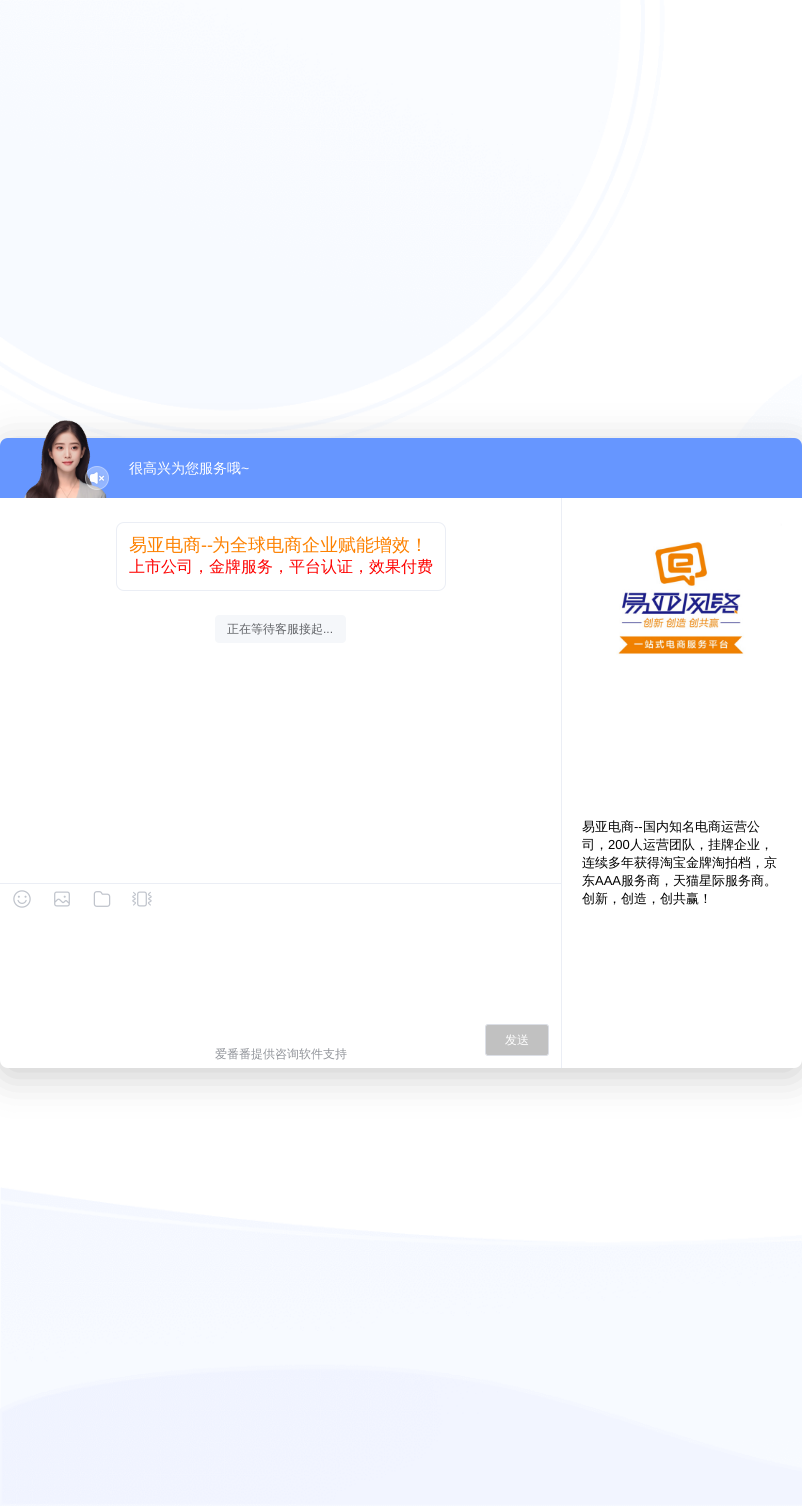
#include <cairo.h>
#include <math.h>
#include <stddef.h>

static cairo_t *ctx;

static void use_color(int r, int g, int b) {
    cairo_set_source_rgb(ctx, r / 255.0, g / 255.0, b / 255.0);
}

static void round_rect(double x, double y, double w, double h, double r) {
    cairo_new_sub_path(ctx);
    cairo_arc(ctx, x + w - r, y + h - r, r, 0, M_PI / 2);
    cairo_arc(ctx, x + r, y + h - r, r, M_PI / 2, M_PI);
    cairo_arc(ctx, x + r, y + r, r, M_PI, 1.5 * M_PI);
    cairo_arc(ctx, x + w - r, y + r, r, 1.5 * M_PI, 2 * M_PI);
    cairo_close_path(ctx);
}

static void shadow(double x, double y, double w, double h, double r, double blur, double alpha) {
    cairo_push_group_with_content(ctx, CAIRO_CONTENT_ALPHA);
    cairo_set_operator(ctx, CAIRO_OPERATOR_SOURCE);
    for (int i = 15; i >= -15 && fmin(w, h) + blur * i / 3 > 0; i -= 2) {
        double e = blur * i / 6;
        cairo_set_source_rgba(ctx, 0, 0, 0, alpha * erfc((i - 1) / 8.5) / 2);
        round_rect(x - e, y - e, w + 2 * e, h + 2 * e, fmax(0, fmin(r + e + blur * .6, fmin(w, h) / 2 + e)));
        cairo_fill(ctx);
    }
    cairo_pattern_t *soft = cairo_pop_group(ctx);
    cairo_mask(ctx, soft);
    cairo_pattern_destroy(soft);
}

static void picture(const char *path, double x, double y, double w, double h) {
    cairo_surface_t *image = cairo_image_surface_create_from_png(path);
    cairo_save(ctx);
    cairo_set_source_surface(ctx, image, x, y);
    cairo_rectangle(ctx, x, y, w, h);
    cairo_fill(ctx);
    cairo_restore(ctx);
    cairo_surface_destroy(image);
}

int main(void) {
    cairo_surface_t *surface = cairo_image_surface_create(CAIRO_FORMAT_RGB24, 802, 1506);
    ctx = cairo_create(surface);
    cairo_font_options_t *options = cairo_font_options_create();
    cairo_font_options_set_hint_metrics(options, CAIRO_HINT_METRICS_OFF);
    cairo_font_options_set_hint_style(options, CAIRO_HINT_STYLE_NONE);
    cairo_set_font_options(ctx, options);
    cairo_set_miter_limit(ctx, 4);
    use_color(255, 255, 255);
    cairo_paint(ctx);
    picture("img1.png", 0, 0, 802, 1506);
    use_color(0, 0, 0);
    shadow(0, 446, 802, 630, 8, 20, 0.2);
    use_color(102, 150, 255);
    cairo_new_path(ctx);
    cairo_move_to(ctx, 8, 438);
    cairo_line_to(ctx, 794, 438);
    cairo_curve_to(ctx, 798.5, 438, 802, 441.5, 802, 446);
    cairo_line_to(ctx, 802, 498);
    cairo_line_to(ctx, 0, 498);
    cairo_line_to(ctx, 0, 446);
    cairo_curve_to(ctx, 0, 441.5, 3.5, 438, 8, 438);
    cairo_close_path(ctx);
    cairo_fill(ctx);
    picture("img2.png", 24, 420, 83, 78);
    cairo_select_font_face(ctx, "WenQuanYi Zen Hei Medium", CAIRO_FONT_SLANT_NORMAL, CAIRO_FONT_WEIGHT_NORMAL);
    cairo_set_font_size(ctx, 14);
    use_color(255, 255, 255);
    cairo_move_to(ctx, 129, 473);
    cairo_show_text(ctx, "很高兴为您服务哦");
    cairo_select_font_face(ctx, "Liberation Sans", CAIRO_FONT_SLANT_NORMAL, CAIRO_FONT_WEIGHT_NORMAL);
    cairo_move_to(ctx, 241, 473);
    cairo_show_text(ctx, "~");
    picture("img3.png", 85, 466, 24, 24);
    cairo_new_path(ctx);
    cairo_move_to(ctx, 0, 498);
    cairo_line_to(ctx, 561, 498);
    cairo_line_to(ctx, 561, 1068);
    cairo_line_to(ctx, 8, 1068);
    cairo_curve_to(ctx, 3.5, 1068, 0, 1064.5, 0, 1060);
    cairo_close_path(ctx);
    cairo_fill(ctx);
    round_rect(116.5, 522.5, 329, 68, 7.5);
    use_color(235, 238, 245);
    cairo_set_line_width(ctx, 1);
    cairo_stroke(ctx);
    cairo_select_font_face(ctx, "WenQuanYi Zen Hei Medium", CAIRO_FONT_SLANT_NORMAL, CAIRO_FONT_WEIGHT_NORMAL);
    cairo_set_font_size(ctx, 18);
    use_color(253, 129, 0);
    cairo_move_to(ctx, 129, 551);
    cairo_show_text(ctx, "易亚电商");
    cairo_select_font_face(ctx, "Liberation Sans", CAIRO_FONT_SLANT_NORMAL, CAIRO_FONT_WEIGHT_NORMAL);
    cairo_move_to(ctx, 201, 551);
    cairo_show_text(ctx, "--");
    cairo_select_font_face(ctx, "WenQuanYi Zen Hei Medium", CAIRO_FONT_SLANT_NORMAL, CAIRO_FONT_WEIGHT_NORMAL);
    cairo_move_to(ctx, 212, 551);
    cairo_show_text(ctx, "为全球电商企业赋能增效！");
    cairo_set_font_size(ctx, 16);
    use_color(254, 1, 0);
    cairo_move_to(ctx, 129, 572);
    cairo_show_text(ctx, "上市公司，金牌服务，平台认证，效果付费");
    use_color(245, 247, 250);
    round_rect(215, 615, 131, 28, 4);
    cairo_fill(ctx);
    cairo_set_font_size(ctx, 12);
    use_color(96, 98, 102);
    cairo_move_to(ctx, 227, 633);
    cairo_show_text(ctx, "正在等待客服接起");
    cairo_select_font_face(ctx, "Liberation Sans", CAIRO_FONT_SLANT_NORMAL, CAIRO_FONT_WEIGHT_NORMAL);
    cairo_move_to(ctx, 323, 633);
    cairo_show_text(ctx, "...");
    use_color(235, 238, 245);
    cairo_rectangle(ctx, 0, 883, 561, 1);
    cairo_fill(ctx);
    picture("img4.png", 13, 890, 18, 18);
    picture("img5.png", 54, 891, 16, 16);
    picture("img6.png", 93, 891, 18, 16);
    picture("img7.png", 132, 891, 20, 16);
    use_color(193, 193, 193);
    round_rect(485.5, 1024.5, 63, 31, 2.5);
    cairo_fill_preserve(ctx);
    use_color(220, 223, 230);
    cairo_stroke(ctx);
    cairo_select_font_face(ctx, "WenQuanYi Zen Hei Medium", CAIRO_FONT_SLANT_NORMAL, CAIRO_FONT_WEIGHT_NORMAL);
    use_color(255, 255, 255);
    cairo_move_to(ctx, 505, 1044);
    cairo_show_text(ctx, "发送");
    use_color(144, 147, 153);
    cairo_move_to(ctx, 215, 1058);
    cairo_show_text(ctx, "爱番番提供咨询软件支持");
    use_color(255, 255, 255);
    cairo_new_path(ctx);
    cairo_move_to(ctx, 561, 498);
    cairo_line_to(ctx, 802, 498);
    cairo_line_to(ctx, 802, 1060);
    cairo_curve_to(ctx, 802, 1064.5, 798.5, 1068, 794, 1068);
    cairo_line_to(ctx, 561, 1068);
    cairo_close_path(ctx);
    cairo_fill(ctx);
    use_color(235, 238, 245);
    cairo_rectangle(ctx, 561, 498, 1, 570);
    cairo_fill(ctx);
    picture("img8.png", 582, 518, 200, 167);
    cairo_set_font_size(ctx, 13);
    use_color(0, 0, 0);
    cairo_move_to(ctx, 582, 831);
    cairo_show_text(ctx, "易亚电商");
    cairo_select_font_face(ctx, "Liberation Sans", CAIRO_FONT_SLANT_NORMAL, CAIRO_FONT_WEIGHT_NORMAL);
    cairo_move_to(ctx, 634, 831);
    cairo_show_text(ctx, "--");
    cairo_select_font_face(ctx, "WenQuanYi Zen Hei Medium", CAIRO_FONT_SLANT_NORMAL, CAIRO_FONT_WEIGHT_NORMAL);
    cairo_move_to(ctx, 643, 831);
    cairo_show_text(ctx, "国内知名电商运营公");
    cairo_move_to(ctx, 582, 849);
    cairo_show_text(ctx, "司，");
    cairo_select_font_face(ctx, "Liberation Sans", CAIRO_FONT_SLANT_NORMAL, CAIRO_FONT_WEIGHT_NORMAL);
    cairo_move_to(ctx, 608, 849);
    cairo_show_text(ctx, "200");
    cairo_select_font_face(ctx, "WenQuanYi Zen Hei Medium", CAIRO_FONT_SLANT_NORMAL, CAIRO_FONT_WEIGHT_NORMAL);
    cairo_move_to(ctx, 630, 849);
    cairo_show_text(ctx, "人运营团队，挂牌企业，");
    cairo_move_to(ctx, 582, 867);
    cairo_show_text(ctx, "连续多年获得淘宝金牌淘拍档，京");
    cairo_move_to(ctx, 582, 885);
    cairo_show_text(ctx, "东");
    cairo_select_font_face(ctx, "Liberation Sans", CAIRO_FONT_SLANT_NORMAL, CAIRO_FONT_WEIGHT_NORMAL);
    cairo_move_to(ctx, 595, 885);
    cairo_show_text(ctx, "AAA");
    cairo_select_font_face(ctx, "WenQuanYi Zen Hei Medium", CAIRO_FONT_SLANT_NORMAL, CAIRO_FONT_WEIGHT_NORMAL);
    cairo_move_to(ctx, 621, 885);
    cairo_show_text(ctx, "服务商，天猫星际服务商。");
    cairo_move_to(ctx, 582, 903);
    cairo_show_text(ctx, "创新，创造，创共赢！");
    cairo_surface_write_to_png(surface, "result.png");
    cairo_font_options_destroy(options);
    cairo_destroy(ctx);
    cairo_surface_destroy(surface);
    return 0;
}
